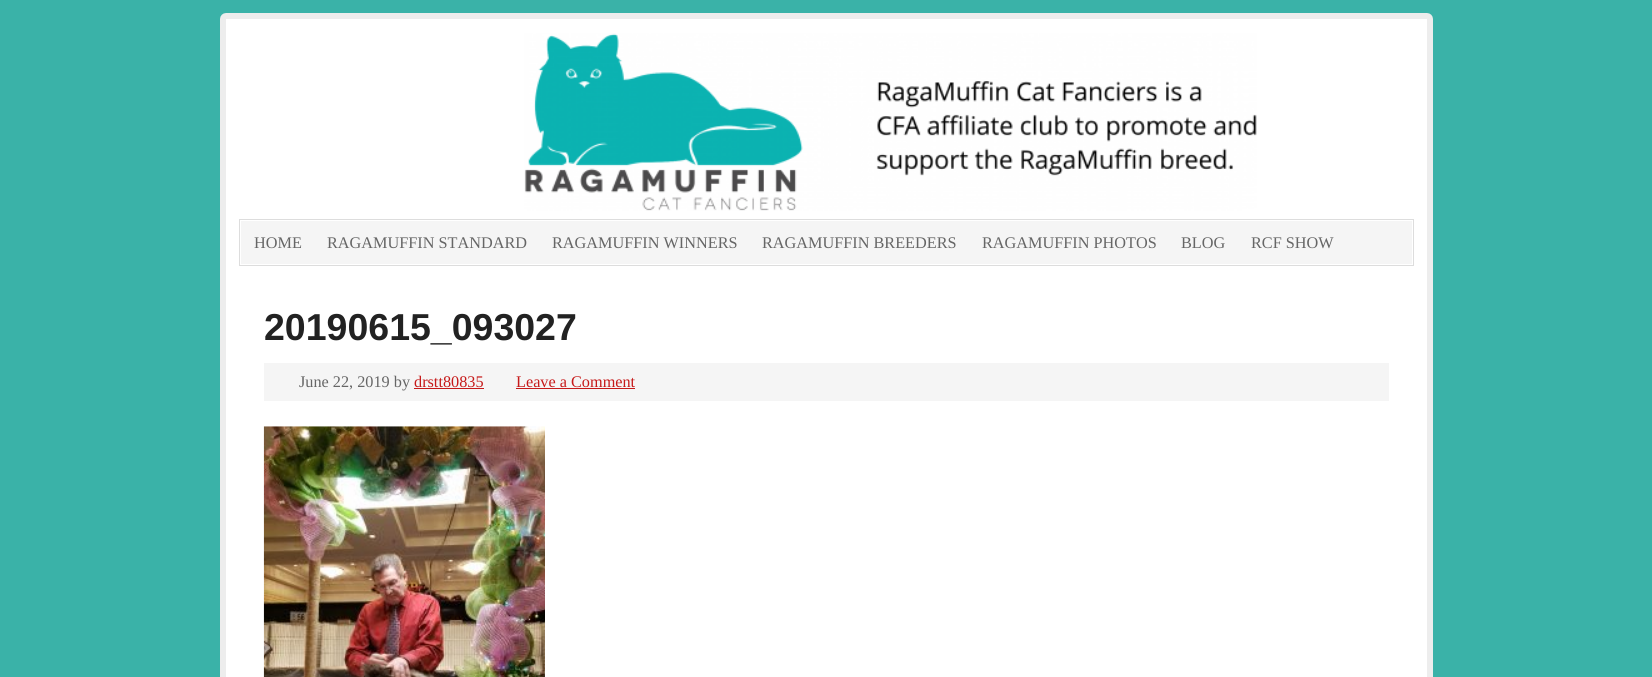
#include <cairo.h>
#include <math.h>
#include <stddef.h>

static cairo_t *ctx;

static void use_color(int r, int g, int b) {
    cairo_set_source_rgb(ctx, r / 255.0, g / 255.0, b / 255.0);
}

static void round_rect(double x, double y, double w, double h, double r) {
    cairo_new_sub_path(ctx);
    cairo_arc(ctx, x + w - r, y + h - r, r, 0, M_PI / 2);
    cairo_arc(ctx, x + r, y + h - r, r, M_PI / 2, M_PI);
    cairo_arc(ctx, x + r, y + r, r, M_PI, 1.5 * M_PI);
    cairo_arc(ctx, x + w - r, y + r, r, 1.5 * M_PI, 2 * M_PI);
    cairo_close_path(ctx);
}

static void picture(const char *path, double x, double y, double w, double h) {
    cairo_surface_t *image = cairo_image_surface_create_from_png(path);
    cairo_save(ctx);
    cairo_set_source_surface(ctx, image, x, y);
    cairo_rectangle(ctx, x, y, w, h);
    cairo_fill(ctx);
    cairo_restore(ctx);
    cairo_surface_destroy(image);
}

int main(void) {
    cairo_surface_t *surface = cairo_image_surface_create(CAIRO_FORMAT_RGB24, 1652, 677);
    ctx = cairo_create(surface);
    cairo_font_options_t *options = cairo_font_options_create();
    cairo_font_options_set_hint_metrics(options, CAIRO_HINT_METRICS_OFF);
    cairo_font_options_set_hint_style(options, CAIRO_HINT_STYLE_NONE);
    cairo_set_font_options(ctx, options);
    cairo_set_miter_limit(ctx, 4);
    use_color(58, 178, 168);
    cairo_paint(ctx);
    use_color(255, 255, 255);
    round_rect(223, 16, 1207, 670, 3);
    cairo_fill_preserve(ctx);
    use_color(237, 237, 237);
    cairo_set_line_width(ctx, 6);
    cairo_stroke(ctx);
    picture("img1.png", 524, 33, 733, 178);
    use_color(245, 245, 245);
    cairo_rectangle(ctx, 241, 221, 1171, 43);
    cairo_fill(ctx);
    cairo_rectangle(ctx, 239.5, 219.5, 1174, 46);
    use_color(221, 221, 221);
    cairo_set_line_width(ctx, 1);
    cairo_stroke(ctx);
    cairo_select_font_face(ctx, "Liberation Serif", CAIRO_FONT_SLANT_NORMAL, CAIRO_FONT_WEIGHT_NORMAL);
    cairo_set_font_size(ctx, 16.25);
    use_color(102, 102, 102);
    cairo_move_to(ctx, 254, 248);
    cairo_show_text(ctx, "HOME");
    cairo_move_to(ctx, 327, 248);
    cairo_show_text(ctx, "RAGAMUFFIN STANDARD");
    cairo_move_to(ctx, 552, 248);
    cairo_show_text(ctx, "RAGAMUFFIN WINNERS");
    cairo_move_to(ctx, 762, 248);
    cairo_show_text(ctx, "RAGAMUFFIN BREEDERS");
    cairo_move_to(ctx, 982, 248);
    cairo_show_text(ctx, "RAGAMUFFIN PHOTOS");
    cairo_move_to(ctx, 1181, 248);
    cairo_show_text(ctx, "BLOG");
    cairo_move_to(ctx, 1251, 248);
    cairo_show_text(ctx, "RCF SHOW");
    cairo_select_font_face(ctx, "Liberation Sans", CAIRO_FONT_SLANT_NORMAL, CAIRO_FONT_WEIGHT_BOLD);
    cairo_set_font_size(ctx, 37.5);
    use_color(34, 34, 34);
    cairo_move_to(ctx, 264, 340);
    cairo_show_text(ctx, "20190615_093027");
    use_color(245, 245, 245);
    cairo_rectangle(ctx, 264, 363, 1125, 38);
    cairo_fill(ctx);
    cairo_select_font_face(ctx, "Liberation Serif", CAIRO_FONT_SLANT_NORMAL, CAIRO_FONT_WEIGHT_NORMAL);
    cairo_set_font_size(ctx, 16.25);
    use_color(102, 102, 102);
    cairo_move_to(ctx, 299, 387);
    cairo_show_text(ctx, "June 22, 2019 by");
    use_color(198, 26, 26);
    cairo_move_to(ctx, 414, 387);
    cairo_show_text(ctx, "drstt80835");
    cairo_rectangle(ctx, 414, 388, 70, 1);
    cairo_fill(ctx);
    cairo_move_to(ctx, 516, 387);
    cairo_show_text(ctx, "Leave a Comment");
    cairo_rectangle(ctx, 516, 388, 119, 1);
    cairo_fill(ctx);
    picture("img2.png", 263, 426, 282, 251);
    cairo_surface_write_to_png(surface, "result.png");
    cairo_font_options_destroy(options);
    cairo_destroy(ctx);
    cairo_surface_destroy(surface);
    return 0;
}
